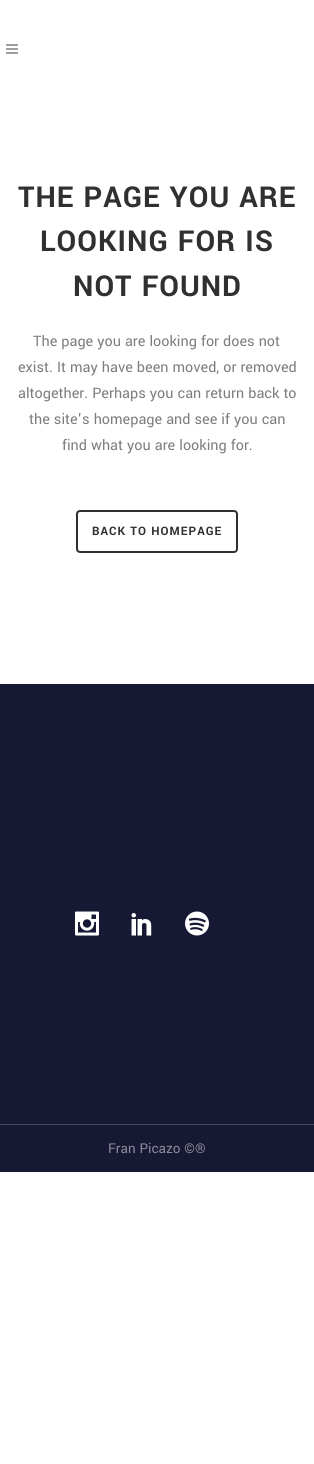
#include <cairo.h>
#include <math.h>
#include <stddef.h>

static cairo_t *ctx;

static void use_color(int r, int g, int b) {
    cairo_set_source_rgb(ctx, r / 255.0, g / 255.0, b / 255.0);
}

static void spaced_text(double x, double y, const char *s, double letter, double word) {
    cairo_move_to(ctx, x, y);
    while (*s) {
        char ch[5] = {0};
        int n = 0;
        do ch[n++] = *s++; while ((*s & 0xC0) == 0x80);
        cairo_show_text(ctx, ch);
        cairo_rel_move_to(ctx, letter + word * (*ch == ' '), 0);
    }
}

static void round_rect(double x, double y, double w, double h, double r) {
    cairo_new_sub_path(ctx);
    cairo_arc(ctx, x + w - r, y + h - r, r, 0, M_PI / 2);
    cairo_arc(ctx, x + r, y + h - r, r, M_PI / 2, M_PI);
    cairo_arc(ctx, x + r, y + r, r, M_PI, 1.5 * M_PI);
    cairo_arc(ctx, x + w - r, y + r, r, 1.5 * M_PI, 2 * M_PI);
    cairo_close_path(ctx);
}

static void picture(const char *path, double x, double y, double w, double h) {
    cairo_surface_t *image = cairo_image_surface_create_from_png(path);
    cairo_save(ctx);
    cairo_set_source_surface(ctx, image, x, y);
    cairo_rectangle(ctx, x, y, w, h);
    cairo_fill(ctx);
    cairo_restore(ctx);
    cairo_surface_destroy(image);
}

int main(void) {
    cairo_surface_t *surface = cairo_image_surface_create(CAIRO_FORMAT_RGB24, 314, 1464);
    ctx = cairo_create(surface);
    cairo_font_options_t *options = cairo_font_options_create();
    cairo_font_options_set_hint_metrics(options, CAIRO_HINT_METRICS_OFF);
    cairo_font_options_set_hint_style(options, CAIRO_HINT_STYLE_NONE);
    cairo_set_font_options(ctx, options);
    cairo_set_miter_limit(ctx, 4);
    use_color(255, 255, 255);
    cairo_paint(ctx);
    picture("img1.png", 6, 44, 12, 10);
    cairo_select_font_face(ctx, "Yantramanav", CAIRO_FONT_SLANT_NORMAL, CAIRO_FONT_WEIGHT_BOLD);
    cairo_set_font_size(ctx, 32);
    use_color(48, 48, 48);
    spaced_text(18, 207, "THE PAGE YOU ARE", 1, 0);
    spaced_text(40, 251, "LOOKING FOR IS", 1, 0);
    spaced_text(73, 296, "NOT FOUND", 1, 0);
    cairo_select_font_face(ctx, "Yantramanav", CAIRO_FONT_SLANT_NORMAL, CAIRO_FONT_WEIGHT_NORMAL);
    cairo_set_font_size(ctx, 16);
    use_color(125, 125, 125);
    cairo_move_to(ctx, 33, 346);
    cairo_show_text(ctx, "The page you are looking for does not");
    cairo_move_to(ctx, 18, 372);
    cairo_show_text(ctx, "exist. It may have been moved, or removed");
    cairo_move_to(ctx, 18, 398);
    cairo_show_text(ctx, "altogether. Perhaps you can return back to");
    cairo_move_to(ctx, 29, 424);
    cairo_show_text(ctx, "the site's homepage and see if you can");
    cairo_move_to(ctx, 62, 450);
    cairo_show_text(ctx, "find what you are looking for.");
    round_rect(77, 511, 160, 41, 3);
    use_color(48, 48, 48);
    cairo_stroke(ctx);
    cairo_select_font_face(ctx, "Yantramanav", CAIRO_FONT_SLANT_NORMAL, CAIRO_FONT_WEIGHT_BOLD);
    cairo_set_font_size(ctx, 13);
    spaced_text(92, 535, "BACK TO HOMEPAGE", 1, 0);
    use_color(23, 24, 51);
    cairo_rectangle(ctx, 0, 684, 314, 440);
    cairo_fill(ctx);
    picture("img2.png", 75, 911, 24, 25);
    picture("img3.png", 131, 913, 21, 23);
    picture("img4.png", 185, 911, 24, 25);
    use_color(23, 24, 52);
    cairo_rectangle(ctx, 0, 1125, 314, 47);
    cairo_fill(ctx);
    use_color(72, 73, 94);
    cairo_rectangle(ctx, 0, 1124, 314, 1);
    cairo_fill(ctx);
    cairo_select_font_face(ctx, "Yantramanav", CAIRO_FONT_SLANT_NORMAL, CAIRO_FONT_WEIGHT_NORMAL);
    cairo_set_font_size(ctx, 15);
    use_color(139, 140, 154);
    cairo_move_to(ctx, 108, 1153);
    cairo_show_text(ctx, "Fran Picazo ©®");
    cairo_surface_write_to_png(surface, "result.png");
    cairo_font_options_destroy(options);
    cairo_destroy(ctx);
    cairo_surface_destroy(surface);
    return 0;
}
